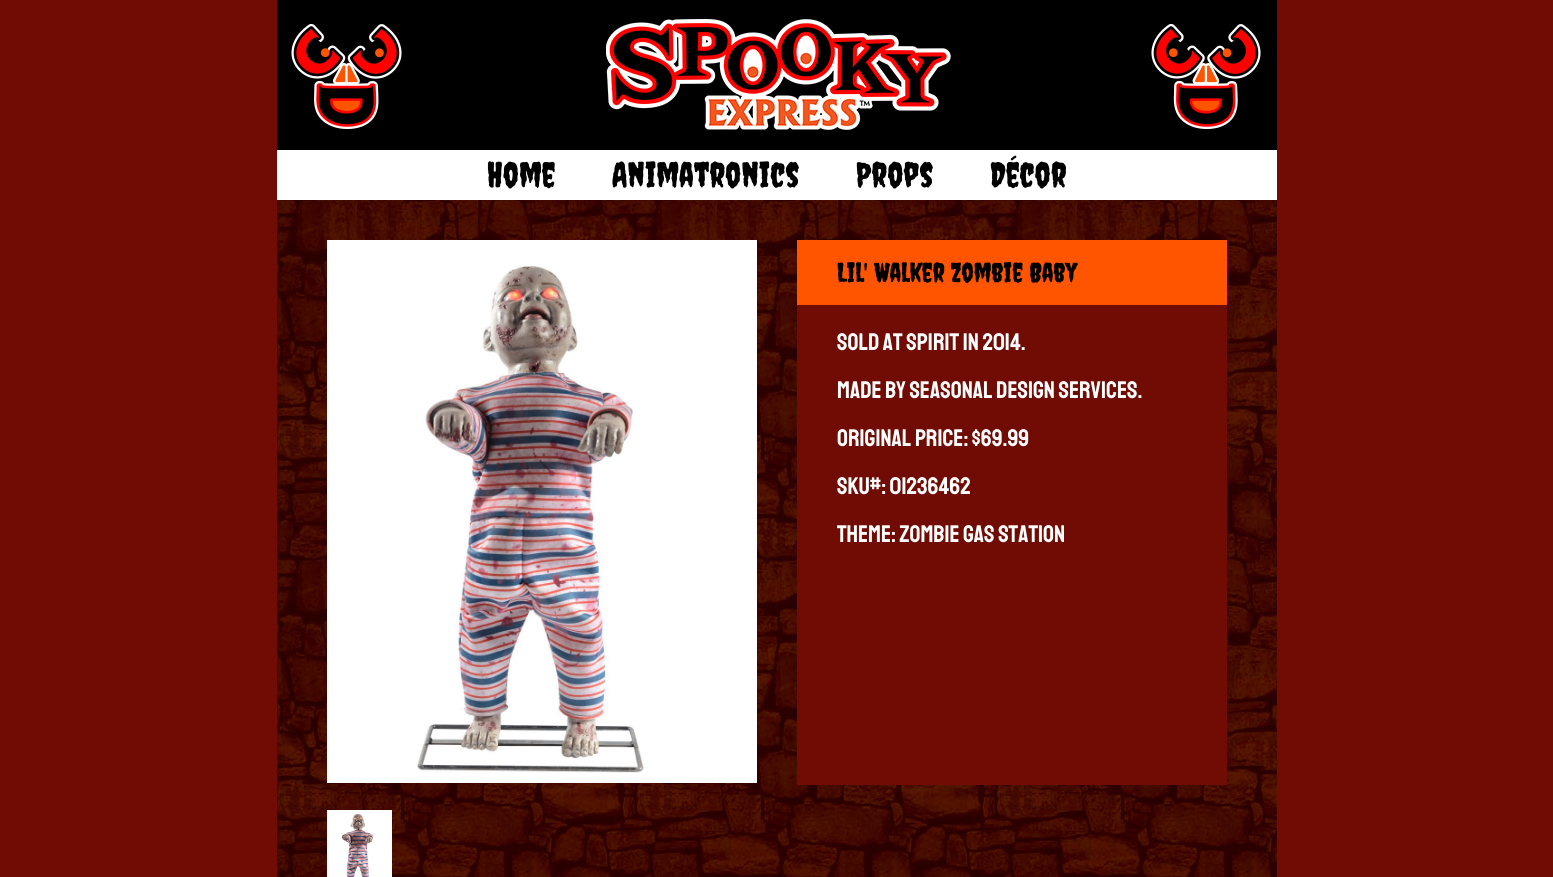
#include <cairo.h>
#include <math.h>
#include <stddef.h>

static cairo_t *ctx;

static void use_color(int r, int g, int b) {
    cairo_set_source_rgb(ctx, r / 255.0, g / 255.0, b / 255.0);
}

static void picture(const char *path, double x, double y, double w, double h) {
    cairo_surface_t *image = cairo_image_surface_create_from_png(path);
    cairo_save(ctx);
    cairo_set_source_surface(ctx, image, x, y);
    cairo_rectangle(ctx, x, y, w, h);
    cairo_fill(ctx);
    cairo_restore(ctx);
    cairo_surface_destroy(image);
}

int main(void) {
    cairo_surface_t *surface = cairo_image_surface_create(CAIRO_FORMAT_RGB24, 1553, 877);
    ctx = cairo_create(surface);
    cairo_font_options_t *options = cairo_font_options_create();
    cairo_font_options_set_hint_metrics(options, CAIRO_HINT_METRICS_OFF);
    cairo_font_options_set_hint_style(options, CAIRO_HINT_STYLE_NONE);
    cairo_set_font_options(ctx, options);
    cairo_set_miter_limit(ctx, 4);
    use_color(113, 12, 4);
    cairo_paint(ctx);
    use_color(0, 0, 0);
    cairo_rectangle(ctx, 277, 0, 1000, 150);
    cairo_fill(ctx);
    picture("img1.png", 291, 19, 970, 111);
    use_color(255, 255, 255);
    cairo_rectangle(ctx, 277, 150, 1000, 50);
    cairo_fill(ctx);
    cairo_select_font_face(ctx, "Creepster", CAIRO_FONT_SLANT_NORMAL, CAIRO_FONT_WEIGHT_NORMAL);
    cairo_set_font_size(ctx, 34.5);
    use_color(0, 0, 0);
    cairo_move_to(ctx, 487, 187);
    cairo_show_text(ctx, "Home");
    cairo_move_to(ctx, 612, 187);
    cairo_show_text(ctx, "Animatronics");
    cairo_move_to(ctx, 856, 187);
    cairo_show_text(ctx, "Props");
    cairo_move_to(ctx, 990, 187);
    cairo_show_text(ctx, "Décor");
    picture("img2.png", 277, 200, 1000, 677);
    picture("img3.png", 327, 240, 430, 543);
    use_color(113, 12, 4);
    cairo_rectangle(ctx, 797, 305, 430, 480);
    cairo_fill(ctx);
    use_color(255, 85, 0);
    cairo_rectangle(ctx, 797, 240, 430, 65);
    cairo_fill(ctx);
    cairo_set_font_size(ctx, 26.75);
    use_color(0, 0, 0);
    cairo_move_to(ctx, 837, 282);
    cairo_show_text(ctx, "Lil' Walker Zombie Baby");
    cairo_select_font_face(ctx, "Staatliches", CAIRO_FONT_SLANT_NORMAL, CAIRO_FONT_WEIGHT_NORMAL);
    cairo_set_font_size(ctx, 24);
    use_color(255, 255, 255);
    cairo_move_to(ctx, 837, 350);
    cairo_show_text(ctx, "Sold at Spirit in 2014.");
    cairo_move_to(ctx, 837, 398);
    cairo_show_text(ctx, "Made by Seasonal Design Services.");
    cairo_move_to(ctx, 837, 446);
    cairo_show_text(ctx, "Original Price: $69.99");
    cairo_move_to(ctx, 837, 494);
    cairo_show_text(ctx, "SKU#: 01236462");
    cairo_move_to(ctx, 837, 542);
    cairo_show_text(ctx, "Theme: Zombie Gas Station");
    picture("img4.png", 327, 810, 65, 67);
    cairo_surface_write_to_png(surface, "result.png");
    cairo_font_options_destroy(options);
    cairo_destroy(ctx);
    cairo_surface_destroy(surface);
    return 0;
}
